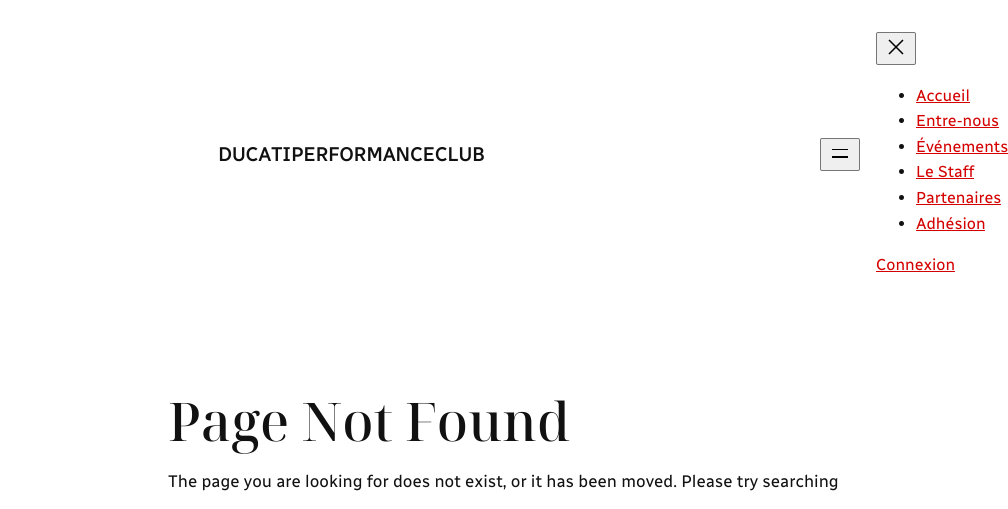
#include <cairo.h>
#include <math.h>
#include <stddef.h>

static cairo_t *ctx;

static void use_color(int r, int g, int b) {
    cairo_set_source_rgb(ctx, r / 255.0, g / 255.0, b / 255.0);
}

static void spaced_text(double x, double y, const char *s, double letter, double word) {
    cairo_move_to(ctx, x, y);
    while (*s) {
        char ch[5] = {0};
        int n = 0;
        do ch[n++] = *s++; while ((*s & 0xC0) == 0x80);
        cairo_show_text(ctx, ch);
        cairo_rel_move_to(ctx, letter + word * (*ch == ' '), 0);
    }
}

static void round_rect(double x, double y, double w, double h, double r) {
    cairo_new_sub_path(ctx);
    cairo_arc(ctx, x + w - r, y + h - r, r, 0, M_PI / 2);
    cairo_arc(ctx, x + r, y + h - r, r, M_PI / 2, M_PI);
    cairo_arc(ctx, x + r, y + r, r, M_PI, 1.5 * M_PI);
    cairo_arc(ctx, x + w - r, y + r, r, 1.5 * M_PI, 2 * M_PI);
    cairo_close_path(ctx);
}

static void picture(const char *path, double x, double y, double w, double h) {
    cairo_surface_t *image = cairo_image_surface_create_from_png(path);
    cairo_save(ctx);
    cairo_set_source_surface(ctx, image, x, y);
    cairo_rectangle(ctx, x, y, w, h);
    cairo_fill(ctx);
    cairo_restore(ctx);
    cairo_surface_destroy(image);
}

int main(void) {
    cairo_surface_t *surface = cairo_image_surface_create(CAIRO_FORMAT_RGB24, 1008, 509);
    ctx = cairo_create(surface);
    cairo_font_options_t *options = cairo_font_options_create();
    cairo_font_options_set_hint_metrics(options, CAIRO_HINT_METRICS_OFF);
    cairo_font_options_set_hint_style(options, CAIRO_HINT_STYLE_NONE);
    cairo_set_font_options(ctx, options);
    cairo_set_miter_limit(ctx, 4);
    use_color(255, 255, 255);
    cairo_paint(ctx);
    cairo_select_font_face(ctx, "Radio Canada Medium", CAIRO_FONT_SLANT_NORMAL, CAIRO_FONT_WEIGHT_NORMAL);
    cairo_set_font_size(ctx, 20);
    use_color(17, 17, 17);
    spaced_text(218, 161, "DUCATIPERFORMANCECLUB", -0.4, 0);
    use_color(239, 239, 239);
    round_rect(820.5, 138.5, 39, 32, 1.5);
    cairo_fill_preserve(ctx);
    use_color(118, 118, 118);
    cairo_set_line_width(ctx, 1);
    cairo_stroke(ctx);
    use_color(0, 0, 0);
    cairo_rectangle(ctx, 832, 149, 16, 1);
    cairo_fill(ctx);
    cairo_rectangle(ctx, 832, 156, 16, 2);
    cairo_fill(ctx);
    use_color(239, 239, 239);
    round_rect(876.5, 32.5, 39, 32, 1.5);
    cairo_fill_preserve(ctx);
    use_color(118, 118, 118);
    cairo_stroke(ctx);
    picture("img1.png", 888, 39, 16, 16);
    use_color(17, 17, 17);
    cairo_arc(ctx, 901.5, 95.5, 2.5, 0, 2 * M_PI);
    cairo_fill(ctx);
    cairo_select_font_face(ctx, "Radio Canada", CAIRO_FONT_SLANT_NORMAL, CAIRO_FONT_WEIGHT_NORMAL);
    cairo_set_font_size(ctx, 16);
    use_color(212, 0, 0);
    cairo_move_to(ctx, 916, 101);
    cairo_show_text(ctx, "Accueil");
    cairo_rectangle(ctx, 916, 102, 54, 1);
    cairo_fill(ctx);
    use_color(17, 17, 17);
    cairo_arc(ctx, 901.5, 120.5, 2.5, 0, 2 * M_PI);
    cairo_fill(ctx);
    use_color(212, 0, 0);
    cairo_move_to(ctx, 916, 126);
    cairo_show_text(ctx, "Entre-nous");
    cairo_rectangle(ctx, 916, 127, 83, 1);
    cairo_fill(ctx);
    use_color(17, 17, 17);
    cairo_arc(ctx, 901.5, 146.5, 2.5, 0, 2 * M_PI);
    cairo_fill(ctx);
    use_color(212, 0, 0);
    cairo_move_to(ctx, 916, 152);
    cairo_show_text(ctx, "Événements");
    cairo_rectangle(ctx, 916, 153, 92, 1);
    cairo_fill(ctx);
    use_color(17, 17, 17);
    cairo_arc(ctx, 901.5, 171.5, 2.5, 0, 2 * M_PI);
    cairo_fill(ctx);
    use_color(212, 0, 0);
    cairo_move_to(ctx, 916, 177);
    cairo_show_text(ctx, "Le Staff");
    cairo_rectangle(ctx, 916, 178, 58, 1);
    cairo_fill(ctx);
    use_color(17, 17, 17);
    cairo_arc(ctx, 901.5, 197.5, 2.5, 0, 2 * M_PI);
    cairo_fill(ctx);
    use_color(212, 0, 0);
    cairo_move_to(ctx, 916, 203);
    cairo_show_text(ctx, "Partenaires");
    cairo_rectangle(ctx, 916, 204, 85, 1);
    cairo_fill(ctx);
    use_color(17, 17, 17);
    cairo_arc(ctx, 901.5, 223.5, 2.5, 0, 2 * M_PI);
    cairo_fill(ctx);
    use_color(212, 0, 0);
    cairo_move_to(ctx, 916, 229);
    cairo_show_text(ctx, "Adhésion");
    cairo_rectangle(ctx, 916, 230, 69, 1);
    cairo_fill(ctx);
    cairo_move_to(ctx, 876, 270);
    cairo_show_text(ctx, "Connexion");
    cairo_rectangle(ctx, 876, 271, 79, 1);
    cairo_fill(ctx);
    cairo_select_font_face(ctx, "Noto Serif Display Medium", CAIRO_FONT_SLANT_NORMAL, CAIRO_FONT_WEIGHT_NORMAL);
    cairo_set_font_size(ctx, 53.25);
    use_color(17, 17, 17);
    cairo_move_to(ctx, 168, 441);
    cairo_show_text(ctx, "Page Not Found");
    cairo_select_font_face(ctx, "Radio Canada", CAIRO_FONT_SLANT_NORMAL, CAIRO_FONT_WEIGHT_NORMAL);
    cairo_set_font_size(ctx, 16.85);
    cairo_move_to(ctx, 168, 487);
    cairo_show_text(ctx, "The page you are looking for does not exist, or it has been moved. Please try searching");
    cairo_surface_write_to_png(surface, "result.png");
    cairo_font_options_destroy(options);
    cairo_destroy(ctx);
    cairo_surface_destroy(surface);
    return 0;
}
